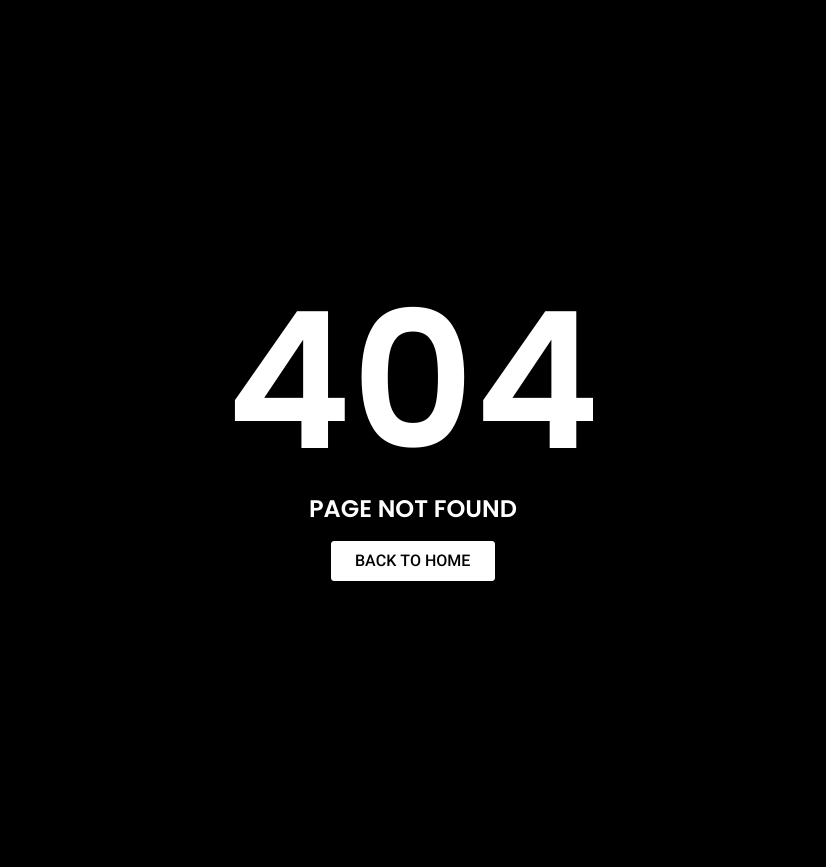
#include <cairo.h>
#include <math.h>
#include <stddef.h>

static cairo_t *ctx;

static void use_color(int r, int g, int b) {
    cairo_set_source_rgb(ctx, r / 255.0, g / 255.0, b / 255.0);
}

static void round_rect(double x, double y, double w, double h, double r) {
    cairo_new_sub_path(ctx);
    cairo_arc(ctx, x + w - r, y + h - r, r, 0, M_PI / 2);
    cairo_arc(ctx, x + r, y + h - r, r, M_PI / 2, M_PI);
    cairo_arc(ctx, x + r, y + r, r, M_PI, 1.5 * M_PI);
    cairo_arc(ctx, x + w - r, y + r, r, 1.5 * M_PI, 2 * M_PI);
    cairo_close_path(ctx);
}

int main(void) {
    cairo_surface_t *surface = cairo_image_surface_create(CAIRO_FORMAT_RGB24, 826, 867);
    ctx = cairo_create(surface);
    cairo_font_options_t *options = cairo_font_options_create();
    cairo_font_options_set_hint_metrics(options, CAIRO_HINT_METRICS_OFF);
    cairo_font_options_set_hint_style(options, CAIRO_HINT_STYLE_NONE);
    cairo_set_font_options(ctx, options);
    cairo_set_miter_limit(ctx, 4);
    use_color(0, 0, 0);
    cairo_paint(ctx);
    cairo_select_font_face(ctx, "Poppins SemiBold", CAIRO_FONT_SLANT_NORMAL, CAIRO_FONT_WEIGHT_NORMAL);
    cairo_set_font_size(ctx, 190);
    use_color(255, 255, 255);
    cairo_move_to(ctx, 226, 448);
    cairo_show_text(ctx, "404");
    cairo_set_font_size(ctx, 24);
    cairo_move_to(ctx, 309, 517);
    cairo_show_text(ctx, "PAGE NOT FOUND");
    round_rect(331, 541, 164, 40, 3);
    cairo_fill(ctx);
    cairo_select_font_face(ctx, "Roboto Medium", CAIRO_FONT_SLANT_NORMAL, CAIRO_FONT_WEIGHT_NORMAL);
    cairo_set_font_size(ctx, 16);
    use_color(3, 0, 0);
    cairo_move_to(ctx, 355, 566);
    cairo_show_text(ctx, "BACK TO HOME");
    cairo_surface_write_to_png(surface, "result.png");
    cairo_font_options_destroy(options);
    cairo_destroy(ctx);
    cairo_surface_destroy(surface);
    return 0;
}
